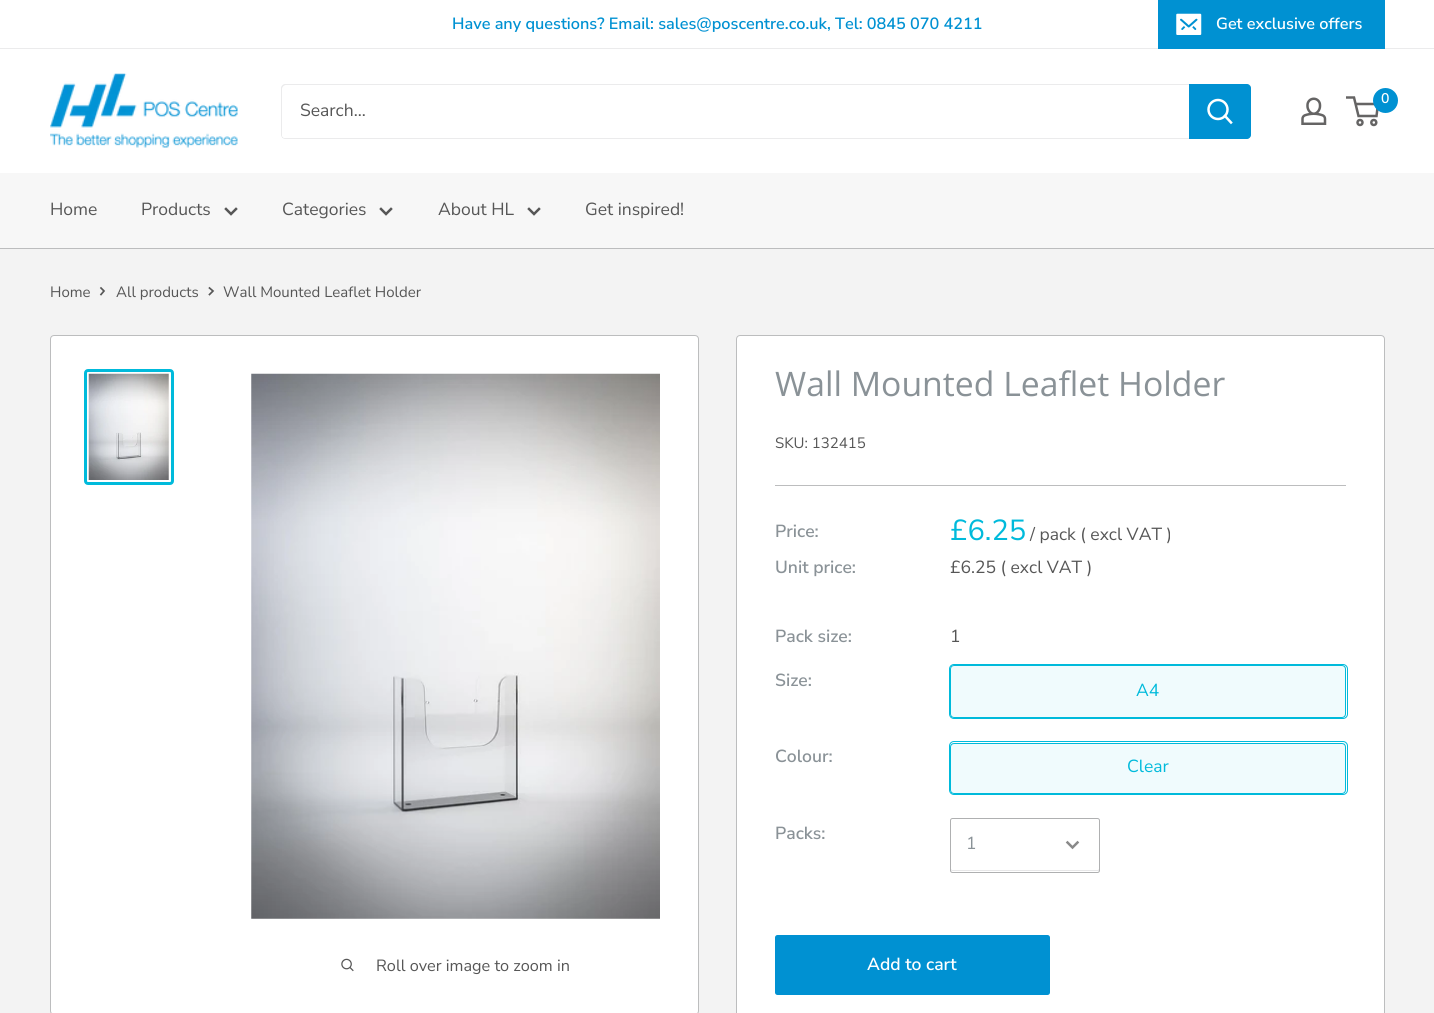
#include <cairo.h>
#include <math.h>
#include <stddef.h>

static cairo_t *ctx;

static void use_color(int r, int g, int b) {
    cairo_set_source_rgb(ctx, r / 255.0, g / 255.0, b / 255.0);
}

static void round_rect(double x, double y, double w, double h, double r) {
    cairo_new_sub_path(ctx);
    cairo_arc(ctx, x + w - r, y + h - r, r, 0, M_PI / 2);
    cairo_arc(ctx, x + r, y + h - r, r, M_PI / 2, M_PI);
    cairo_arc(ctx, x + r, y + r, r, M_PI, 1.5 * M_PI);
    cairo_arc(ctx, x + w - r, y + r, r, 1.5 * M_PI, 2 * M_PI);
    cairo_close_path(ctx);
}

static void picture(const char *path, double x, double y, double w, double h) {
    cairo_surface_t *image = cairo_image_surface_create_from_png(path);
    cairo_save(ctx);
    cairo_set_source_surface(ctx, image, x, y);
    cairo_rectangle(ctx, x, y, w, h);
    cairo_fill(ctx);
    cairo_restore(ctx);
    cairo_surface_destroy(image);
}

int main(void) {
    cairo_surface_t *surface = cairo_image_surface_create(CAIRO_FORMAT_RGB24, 1434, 1013);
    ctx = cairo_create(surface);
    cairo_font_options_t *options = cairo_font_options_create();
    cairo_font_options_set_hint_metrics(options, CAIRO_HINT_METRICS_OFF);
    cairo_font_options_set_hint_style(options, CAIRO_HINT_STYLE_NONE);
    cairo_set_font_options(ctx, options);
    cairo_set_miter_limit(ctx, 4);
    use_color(243, 243, 243);
    cairo_paint(ctx);
    use_color(255, 255, 255);
    cairo_rectangle(ctx, 0, 0, 1434, 48);
    cairo_fill(ctx);
    use_color(235, 235, 236);
    cairo_rectangle(ctx, 0, 48, 1434, 1);
    cairo_fill(ctx);
    cairo_select_font_face(ctx, "Nunito Sans SemiBold", CAIRO_FONT_SLANT_NORMAL, CAIRO_FONT_WEIGHT_NORMAL);
    cairo_set_font_size(ctx, 16.25);
    use_color(0, 145, 210);
    cairo_move_to(ctx, 452, 29);
    cairo_show_text(ctx, "Have any questions? Email: sales@poscentre.co.uk, Tel: 0845 070 4211");
    cairo_rectangle(ctx, 1158, 0, 227, 49);
    cairo_fill(ctx);
    picture("img1.png", 1176, 13, 26, 22);
    use_color(255, 255, 255);
    cairo_move_to(ctx, 1216, 29);
    cairo_show_text(ctx, "Get exclusive offers");
    cairo_rectangle(ctx, 0, 49, 1434, 124);
    cairo_fill(ctx);
    picture("img2.png", 50, 73, 188, 75);
    picture("img3.png", 1301, 97, 26, 28);
    cairo_arc(ctx, 1360, 122.5, 2.5, 0, 2 * M_PI);
    use_color(101, 100, 100);
    cairo_set_line_width(ctx, 2.5);
    cairo_stroke(ctx);
    cairo_arc(ctx, 1373.8, 122.5, 2.5, 0, 2 * M_PI);
    cairo_stroke(ctx);
    cairo_new_path(ctx);
    cairo_move_to(ctx, 1355.5, 104);
    cairo_line_to(ctx, 1378, 104);
    cairo_line_to(ctx, 1376.5, 116);
    cairo_line_to(ctx, 1358.5, 116);
    cairo_line_to(ctx, 1354, 97.5);
    cairo_line_to(ctx, 1346, 97.5);
    cairo_stroke(ctx);
    use_color(0, 145, 210);
    cairo_arc(ctx, 1385.5, 100.5, 12.5, 0, 2 * M_PI);
    cairo_fill(ctx);
    cairo_set_font_size(ctx, 14);
    use_color(255, 255, 255);
    cairo_move_to(ctx, 1381, 103);
    cairo_show_text(ctx, "0");
    use_color(235, 235, 236);
    cairo_new_path(ctx);
    cairo_move_to(ctx, 282, 137);
    cairo_curve_to(ctx, 282, 138, 284, 139, 285, 139);
    cairo_line_to(ctx, 1247, 139);
    cairo_curve_to(ctx, 1249, 139, 1251, 137, 1251, 135);
    cairo_line_to(ctx, 1251, 88);
    cairo_curve_to(ctx, 1251, 87, 1251, 86, 1250, 85);
    cairo_line_to(ctx, 1250, 126);
    cairo_curve_to(ctx, 1250, 128, 1252, 138, 1246, 138);
    cairo_line_to(ctx, 284, 138);
    cairo_close_path(ctx);
    cairo_fill(ctx);
    cairo_set_source_rgba(ctx, 0.737, 0.741, 0.745, 0.3);
    cairo_new_path(ctx);
    cairo_move_to(ctx, 286, 85);
    cairo_line_to(ctx, 1250, 85);
    cairo_curve_to(ctx, 1249, 84, 1248, 84, 1247, 84);
    cairo_line_to(ctx, 285, 84);
    cairo_curve_to(ctx, 283, 84, 281, 86, 281, 88);
    cairo_line_to(ctx, 281, 135);
    cairo_curve_to(ctx, 281, 136, 282, 138, 283, 138);
    cairo_line_to(ctx, 282, 136);
    cairo_line_to(ctx, 282, 89);
    cairo_curve_to(ctx, 282, 87, 284, 85, 286, 85);
    cairo_close_path(ctx);
    cairo_fill(ctx);
    cairo_select_font_face(ctx, "Nunito Sans", CAIRO_FONT_SLANT_NORMAL, CAIRO_FONT_WEIGHT_NORMAL);
    cairo_set_font_size(ctx, 17.5);
    use_color(86, 86, 86);
    cairo_move_to(ctx, 300, 116);
    cairo_show_text(ctx, "Search...");
    use_color(0, 145, 210);
    cairo_new_path(ctx);
    cairo_move_to(ctx, 1189, 84);
    cairo_line_to(ctx, 1247, 84);
    cairo_curve_to(ctx, 1249, 84, 1251, 86, 1251, 88);
    cairo_line_to(ctx, 1251, 135);
    cairo_curve_to(ctx, 1251, 137, 1249, 139, 1247, 139);
    cairo_line_to(ctx, 1189, 139);
    cairo_close_path(ctx);
    cairo_fill(ctx);
    cairo_new_path(ctx);
    cairo_move_to(ctx, 1231, 122.5);
    cairo_line_to(ctx, 1225, 116);
    use_color(255, 255, 255);
    cairo_set_line_cap(ctx, CAIRO_LINE_CAP_SQUARE);
    cairo_stroke(ctx);
    cairo_arc(ctx, 1218, 109.5, 9.5, 0, 2 * M_PI);
    cairo_set_line_cap(ctx, CAIRO_LINE_CAP_BUTT);
    cairo_stroke(ctx);
    use_color(247, 247, 247);
    cairo_rectangle(ctx, 0, 173, 1434, 75);
    cairo_fill(ctx);
    use_color(188, 189, 190);
    cairo_rectangle(ctx, 0, 248, 1434, 1);
    cairo_fill(ctx);
    use_color(86, 86, 86);
    cairo_move_to(ctx, 50, 215);
    cairo_show_text(ctx, "Home");
    cairo_move_to(ctx, 141, 215);
    cairo_show_text(ctx, "Products");
    cairo_new_path(ctx);
    cairo_move_to(ctx, 236, 209);
    cairo_line_to(ctx, 231, 214);
    cairo_line_to(ctx, 226, 209);
    cairo_set_line_cap(ctx, CAIRO_LINE_CAP_SQUARE);
    cairo_stroke(ctx);
    cairo_move_to(ctx, 282, 215);
    cairo_show_text(ctx, "Categories");
    cairo_new_path(ctx);
    cairo_move_to(ctx, 391, 209);
    cairo_line_to(ctx, 386, 214);
    cairo_line_to(ctx, 381, 209);
    cairo_stroke(ctx);
    cairo_move_to(ctx, 438, 215);
    cairo_show_text(ctx, "About HL");
    cairo_new_path(ctx);
    cairo_move_to(ctx, 539, 209);
    cairo_line_to(ctx, 534, 214);
    cairo_line_to(ctx, 529, 209);
    cairo_stroke(ctx);
    cairo_move_to(ctx, 585, 215);
    cairo_show_text(ctx, "Get inspired!");
    cairo_set_font_size(ctx, 15);
    cairo_move_to(ctx, 50, 297);
    cairo_show_text(ctx, "Home");
    cairo_new_path(ctx);
    cairo_move_to(ctx, 101, 288);
    cairo_line_to(ctx, 104, 291);
    cairo_line_to(ctx, 101, 294.5);
    cairo_set_line_width(ctx, 1.7);
    cairo_stroke(ctx);
    cairo_move_to(ctx, 116, 297);
    cairo_show_text(ctx, "All products");
    cairo_new_path(ctx);
    cairo_move_to(ctx, 209.5, 288);
    cairo_line_to(ctx, 213, 291);
    cairo_line_to(ctx, 209.5, 294.5);
    cairo_stroke(ctx);
    cairo_move_to(ctx, 223, 297);
    cairo_show_text(ctx, "Wall Mounted Leaflet Holder");
    use_color(255, 255, 255);
    round_rect(50.5, 335.5, 648, 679, 3.5);
    cairo_fill_preserve(ctx);
    use_color(188, 189, 190);
    cairo_set_line_width(ctx, 1);
    cairo_set_line_cap(ctx, CAIRO_LINE_CAP_BUTT);
    cairo_stroke(ctx);
    round_rect(85.5, 370.5, 87, 113, 2.5);
    use_color(0, 186, 219);
    cairo_set_line_width(ctx, 3);
    cairo_stroke(ctx);
    picture("img4.png", 88, 373, 81, 107);
    picture("img5.png", 251, 373, 409, 546);
    picture("img6.png", 341, 958, 13, 14);
    cairo_set_font_size(ctx, 16.25);
    use_color(86, 86, 86);
    cairo_move_to(ctx, 376, 971);
    cairo_show_text(ctx, "Roll over image to zoom in");
    use_color(255, 255, 255);
    round_rect(736.5, 335.5, 648, 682, 3.5);
    cairo_fill_preserve(ctx);
    use_color(188, 189, 190);
    cairo_set_line_width(ctx, 1);
    cairo_stroke(ctx);
    cairo_select_font_face(ctx, "Open Sans", CAIRO_FONT_SLANT_NORMAL, CAIRO_FONT_WEIGHT_NORMAL);
    cairo_set_font_size(ctx, 33.75);
    use_color(138, 146, 151);
    cairo_move_to(ctx, 775, 396);
    cairo_show_text(ctx, "Wall Mounted Leaflet Holder");
    cairo_select_font_face(ctx, "Nunito Sans", CAIRO_FONT_SLANT_NORMAL, CAIRO_FONT_WEIGHT_NORMAL);
    cairo_set_font_size(ctx, 15);
    use_color(86, 86, 86);
    cairo_move_to(ctx, 775, 448);
    cairo_show_text(ctx, "SKU: 132415");
    use_color(188, 189, 190);
    cairo_rectangle(ctx, 775, 485, 571, 1);
    cairo_fill(ctx);
    cairo_select_font_face(ctx, "Nunito Sans SemiBold", CAIRO_FONT_SLANT_NORMAL, CAIRO_FONT_WEIGHT_NORMAL);
    cairo_set_font_size(ctx, 17.5);
    use_color(138, 146, 151);
    cairo_move_to(ctx, 775, 537);
    cairo_show_text(ctx, "Price:");
    cairo_move_to(ctx, 775, 573);
    cairo_show_text(ctx, "Unit price:");
    cairo_select_font_face(ctx, "Nunito Sans", CAIRO_FONT_SLANT_NORMAL, CAIRO_FONT_WEIGHT_NORMAL);
    cairo_set_font_size(ctx, 29);
    use_color(0, 186, 219);
    cairo_move_to(ctx, 950, 540);
    cairo_show_text(ctx, "£6.25");
    cairo_set_font_size(ctx, 17.5);
    use_color(86, 86, 86);
    cairo_move_to(ctx, 1030, 540);
    cairo_show_text(ctx, "/ pack ( excl VAT )");
    cairo_move_to(ctx, 950, 573);
    cairo_show_text(ctx, "£6.25 ( excl VAT )");
    cairo_select_font_face(ctx, "Nunito Sans SemiBold", CAIRO_FONT_SLANT_NORMAL, CAIRO_FONT_WEIGHT_NORMAL);
    use_color(138, 146, 151);
    cairo_move_to(ctx, 775, 642);
    cairo_show_text(ctx, "Pack size:");
    cairo_select_font_face(ctx, "Nunito Sans", CAIRO_FONT_SLANT_NORMAL, CAIRO_FONT_WEIGHT_NORMAL);
    use_color(86, 86, 86);
    cairo_move_to(ctx, 950, 642);
    cairo_show_text(ctx, "1");
    cairo_select_font_face(ctx, "Nunito Sans SemiBold", CAIRO_FONT_SLANT_NORMAL, CAIRO_FONT_WEIGHT_NORMAL);
    use_color(138, 146, 151);
    cairo_move_to(ctx, 775, 686);
    cairo_show_text(ctx, "Size:");
    round_rect(949.5, 664.5, 398, 54, 4.5);
    use_color(0, 186, 219);
    cairo_stroke(ctx);
    cairo_set_source_rgba(ctx, 0, 0.729, 0.859, 0.06);
    cairo_rectangle(ctx, 950, 665, 396, 53);
    cairo_fill(ctx);
    round_rect(950.5, 665.5, 395, 52, 3.5);
    use_color(0, 186, 219);
    cairo_stroke(ctx);
    cairo_select_font_face(ctx, "Nunito Sans", CAIRO_FONT_SLANT_NORMAL, CAIRO_FONT_WEIGHT_NORMAL);
    cairo_move_to(ctx, 1136, 696);
    cairo_show_text(ctx, "A4");
    cairo_select_font_face(ctx, "Nunito Sans SemiBold", CAIRO_FONT_SLANT_NORMAL, CAIRO_FONT_WEIGHT_NORMAL);
    use_color(138, 146, 151);
    cairo_move_to(ctx, 775, 762);
    cairo_show_text(ctx, "Colour:");
    round_rect(949.5, 741.5, 398, 53, 4.5);
    use_color(0, 186, 219);
    cairo_stroke(ctx);
    cairo_set_source_rgba(ctx, 0, 0.729, 0.859, 0.06);
    cairo_rectangle(ctx, 950, 743, 396, 51);
    cairo_fill(ctx);
    round_rect(950.5, 743.5, 395, 50, 3.5);
    use_color(0, 186, 219);
    cairo_stroke(ctx);
    cairo_select_font_face(ctx, "Nunito Sans", CAIRO_FONT_SLANT_NORMAL, CAIRO_FONT_WEIGHT_NORMAL);
    cairo_move_to(ctx, 1127, 772);
    cairo_show_text(ctx, "Clear");
    cairo_select_font_face(ctx, "Nunito Sans SemiBold", CAIRO_FONT_SLANT_NORMAL, CAIRO_FONT_WEIGHT_NORMAL);
    use_color(138, 146, 151);
    cairo_move_to(ctx, 775, 839);
    cairo_show_text(ctx, "Packs:");
    use_color(231, 231, 232);
    cairo_new_path(ctx);
    cairo_move_to(ctx, 951, 869);
    cairo_curve_to(ctx, 951, 870, 951, 871, 952, 871);
    cairo_line_to(ctx, 1099, 871);
    cairo_line_to(ctx, 1099, 869);
    cairo_line_to(ctx, 1098, 870);
    cairo_line_to(ctx, 952, 870);
    cairo_close_path(ctx);
    cairo_fill(ctx);
    round_rect(950.5, 818.5, 149, 54, 2);
    use_color(175, 176, 177);
    cairo_stroke(ctx);
    cairo_select_font_face(ctx, "Nunito Sans", CAIRO_FONT_SLANT_NORMAL, CAIRO_FONT_WEIGHT_NORMAL);
    use_color(138, 146, 151);
    cairo_move_to(ctx, 966, 849);
    cairo_show_text(ctx, "1");
    cairo_new_path(ctx);
    cairo_move_to(ctx, 1077.5, 842.5);
    cairo_line_to(ctx, 1072.5, 847.5);
    cairo_line_to(ctx, 1067.5, 842.5);
    use_color(137, 137, 137);
    cairo_set_line_width(ctx, 2.5);
    cairo_set_line_cap(ctx, CAIRO_LINE_CAP_SQUARE);
    cairo_stroke(ctx);
    use_color(0, 145, 210);
    round_rect(775, 935, 275, 60, 2.5);
    cairo_fill(ctx);
    cairo_select_font_face(ctx, "Nunito Sans SemiBold", CAIRO_FONT_SLANT_NORMAL, CAIRO_FONT_WEIGHT_NORMAL);
    use_color(255, 255, 255);
    cairo_move_to(ctx, 867, 970);
    cairo_show_text(ctx, "Add to cart");
    cairo_surface_write_to_png(surface, "result.png");
    cairo_font_options_destroy(options);
    cairo_destroy(ctx);
    cairo_surface_destroy(surface);
    return 0;
}
